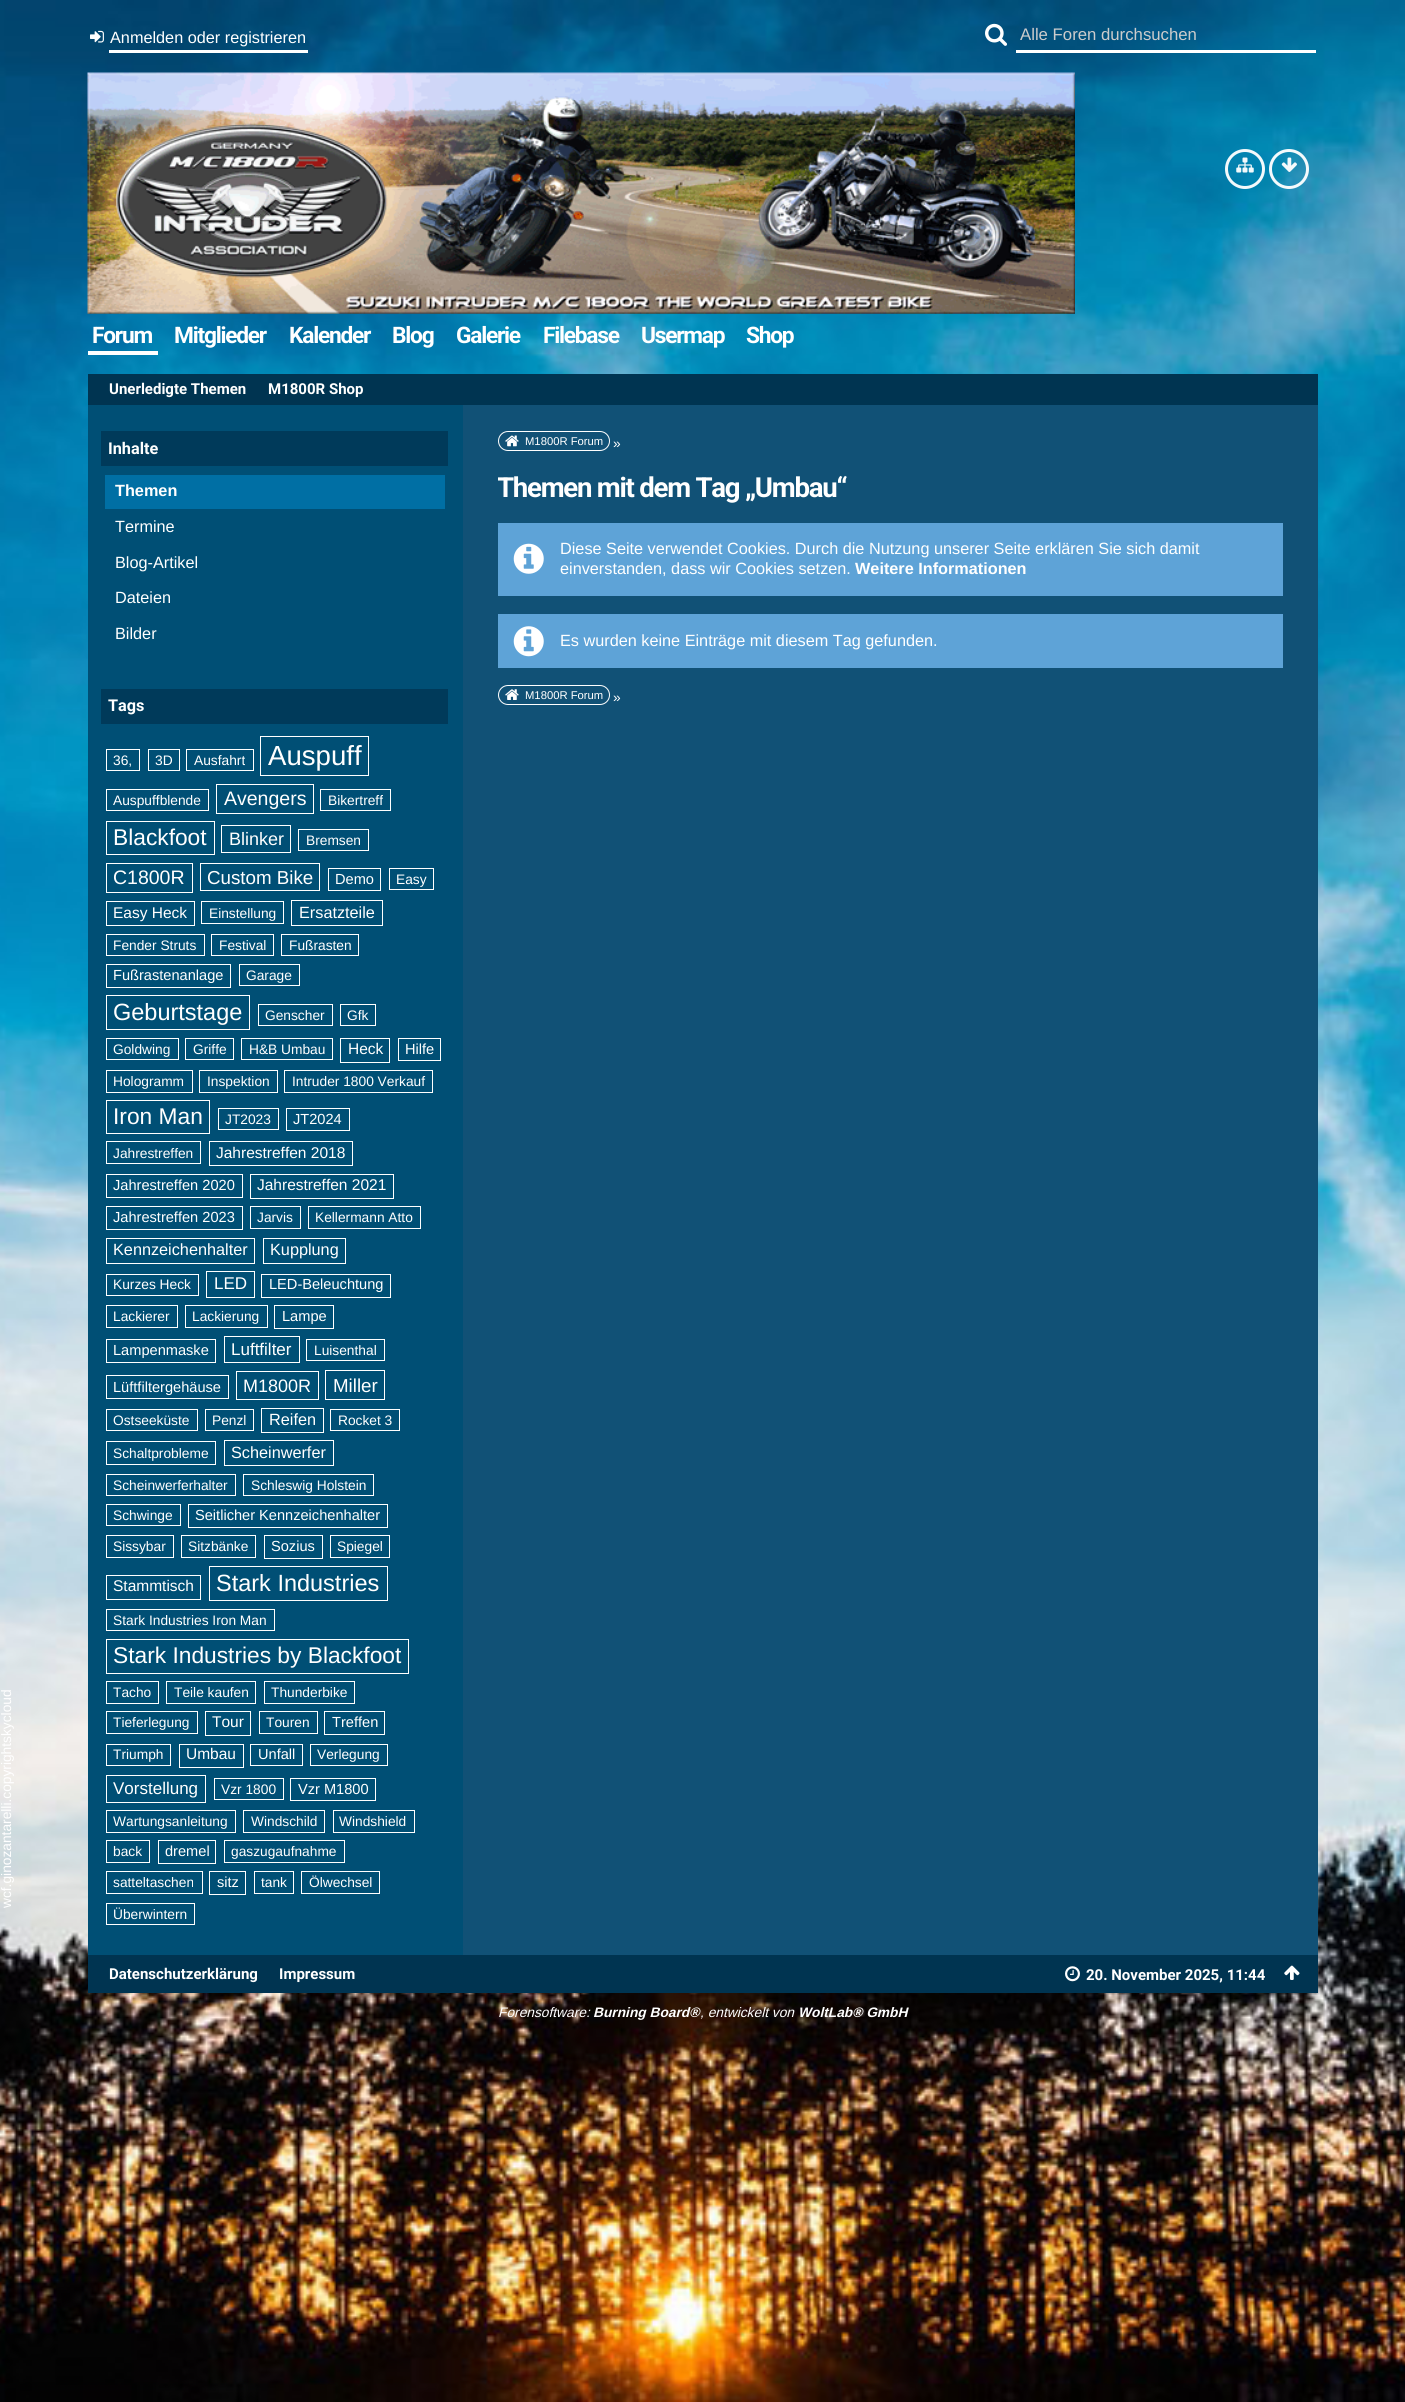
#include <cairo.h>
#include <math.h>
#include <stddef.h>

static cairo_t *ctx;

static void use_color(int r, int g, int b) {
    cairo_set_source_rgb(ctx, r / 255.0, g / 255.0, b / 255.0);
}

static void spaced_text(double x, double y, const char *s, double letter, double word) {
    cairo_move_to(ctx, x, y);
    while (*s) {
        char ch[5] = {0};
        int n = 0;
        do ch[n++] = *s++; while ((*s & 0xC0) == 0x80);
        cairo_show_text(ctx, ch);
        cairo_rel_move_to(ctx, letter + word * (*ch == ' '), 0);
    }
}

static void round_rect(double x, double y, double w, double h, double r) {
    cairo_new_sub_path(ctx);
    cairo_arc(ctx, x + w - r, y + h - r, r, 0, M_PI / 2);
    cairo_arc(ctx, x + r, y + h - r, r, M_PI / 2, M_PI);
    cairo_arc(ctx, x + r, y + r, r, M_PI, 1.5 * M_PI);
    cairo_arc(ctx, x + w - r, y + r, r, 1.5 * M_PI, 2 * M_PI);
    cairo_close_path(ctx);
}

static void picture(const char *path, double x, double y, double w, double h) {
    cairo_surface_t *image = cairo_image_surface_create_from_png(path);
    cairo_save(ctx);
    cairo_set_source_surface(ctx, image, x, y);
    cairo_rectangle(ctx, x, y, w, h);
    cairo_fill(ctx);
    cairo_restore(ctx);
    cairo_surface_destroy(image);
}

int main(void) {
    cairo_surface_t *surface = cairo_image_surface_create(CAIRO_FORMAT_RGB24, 1405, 2402);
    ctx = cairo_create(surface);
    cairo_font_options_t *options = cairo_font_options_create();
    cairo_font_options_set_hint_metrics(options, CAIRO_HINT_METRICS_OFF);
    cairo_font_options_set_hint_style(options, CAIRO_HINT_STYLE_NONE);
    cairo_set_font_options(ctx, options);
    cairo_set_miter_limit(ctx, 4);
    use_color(255, 255, 255);
    cairo_paint(ctx);
    picture("img1.png", 0, 0, 1405, 2402);
    use_color(255, 255, 255);
    cairo_rectangle(ctx, 109, 50, 199, 3);
    cairo_fill(ctx);
    picture("img2.png", 90, 30, 14, 13);
    cairo_select_font_face(ctx, "Arimo", CAIRO_FONT_SLANT_NORMAL, CAIRO_FONT_WEIGHT_NORMAL);
    cairo_set_font_size(ctx, 16.25);
    cairo_move_to(ctx, 110, 43);
    cairo_show_text(ctx, "Anmelden oder registrieren");
    picture("img3.png", 985, 23, 22, 23);
    cairo_rectangle(ctx, 1016, 50, 300, 3);
    cairo_fill(ctx);
    cairo_select_font_face(ctx, "Liberation Sans", CAIRO_FONT_SLANT_NORMAL, CAIRO_FONT_WEIGHT_NORMAL);
    cairo_set_font_size(ctx, 16.75);
    use_color(204, 204, 204);
    cairo_move_to(ctx, 1020, 40);
    cairo_show_text(ctx, "Alle Foren durchsuchen");
    picture("img4.png", 87, 72, 988, 242);
    use_color(255, 255, 255);
    cairo_rectangle(ctx, 88, 351, 70, 4);
    cairo_fill(ctx);
    cairo_select_font_face(ctx, "Roboto", CAIRO_FONT_SLANT_NORMAL, CAIRO_FONT_WEIGHT_BOLD);
    cairo_set_font_size(ctx, 22.75);
    spaced_text(92, 343, "Forum", -1.25, 0);
    spaced_text(174, 343, "Mitglieder", -1.25, 0);
    spaced_text(289, 343, "Kalender", -1.25, 0);
    spaced_text(392, 343, "Blog", -1.25, 0);
    spaced_text(456, 343, "Galerie", -1.25, 0);
    spaced_text(543, 343, "Filebase", -1.25, 0);
    spaced_text(641, 343, "Usermap", -1.25, 0);
    spaced_text(746, 343, "Shop", -1.25, 0);
    use_color(0, 52, 81);
    cairo_rectangle(ctx, 88, 374, 1230, 31);
    cairo_fill(ctx);
    cairo_arc(ctx, 1245, 169, 18.5, 0, 2 * M_PI);
    cairo_set_source_rgba(ctx, 1, 1, 1, 0.95);
    cairo_set_line_width(ctx, 3);
    cairo_stroke(ctx);
    picture("img5.png", 1236, 157, 18, 16);
    cairo_arc(ctx, 1289, 169, 18.5, 0, 2 * M_PI);
    cairo_stroke(ctx);
    picture("img6.png", 1281, 157, 16, 15);
    cairo_set_font_size(ctx, 15);
    use_color(255, 255, 255);
    cairo_move_to(ctx, 109, 394);
    cairo_show_text(ctx, "Unerledigte Themen");
    cairo_move_to(ctx, 268, 394);
    cairo_show_text(ctx, "M1800R Shop");
    use_color(17, 81, 118);
    cairo_rectangle(ctx, 463, 405, 855, 1550);
    cairo_fill(ctx);
    use_color(0, 79, 117);
    cairo_rectangle(ctx, 88, 405, 375, 1550);
    cairo_fill(ctx);
    use_color(0, 58, 90);
    cairo_rectangle(ctx, 101, 431, 347, 35);
    cairo_fill(ctx);
    cairo_set_font_size(ctx, 16.25);
    use_color(255, 255, 255);
    cairo_move_to(ctx, 108, 454);
    cairo_show_text(ctx, "Inhalte");
    use_color(0, 111, 164);
    cairo_rectangle(ctx, 105, 475, 340, 34);
    cairo_fill(ctx);
    cairo_select_font_face(ctx, "Arimo", CAIRO_FONT_SLANT_NORMAL, CAIRO_FONT_WEIGHT_BOLD);
    use_color(255, 255, 255);
    cairo_move_to(ctx, 115, 496);
    cairo_show_text(ctx, "Themen");
    cairo_select_font_face(ctx, "Arimo", CAIRO_FONT_SLANT_NORMAL, CAIRO_FONT_WEIGHT_NORMAL);
    cairo_move_to(ctx, 115, 532);
    cairo_show_text(ctx, "Termine");
    cairo_move_to(ctx, 115, 568);
    cairo_show_text(ctx, "Blog-Artikel");
    cairo_move_to(ctx, 115, 603);
    cairo_show_text(ctx, "Dateien");
    cairo_move_to(ctx, 115, 639);
    cairo_show_text(ctx, "Bilder");
    use_color(0, 58, 90);
    cairo_rectangle(ctx, 101, 689, 347, 35);
    cairo_fill(ctx);
    cairo_select_font_face(ctx, "Roboto", CAIRO_FONT_SLANT_NORMAL, CAIRO_FONT_WEIGHT_BOLD);
    use_color(255, 255, 255);
    cairo_move_to(ctx, 108, 711);
    cairo_show_text(ctx, "Tags");
    cairo_rectangle(ctx, 106.5, 749.5, 33, 21);
    cairo_set_line_width(ctx, 1);
    cairo_stroke(ctx);
    cairo_select_font_face(ctx, "Arimo", CAIRO_FONT_SLANT_NORMAL, CAIRO_FONT_WEIGHT_NORMAL);
    cairo_set_font_size(ctx, 13.75);
    cairo_move_to(ctx, 113, 765);
    cairo_show_text(ctx, "36,");
    cairo_rectangle(ctx, 148.5, 749.5, 31, 21);
    cairo_stroke(ctx);
    cairo_move_to(ctx, 155, 765);
    cairo_show_text(ctx, "3D");
    cairo_rectangle(ctx, 186.5, 749.5, 67, 21);
    cairo_stroke(ctx);
    cairo_move_to(ctx, 194, 765);
    cairo_show_text(ctx, "Ausfahrt");
    cairo_rectangle(ctx, 260.5, 736.5, 108, 39);
    cairo_stroke(ctx);
    cairo_set_font_size(ctx, 27.6);
    cairo_move_to(ctx, 268, 765);
    cairo_show_text(ctx, "Auspuff");
    cairo_rectangle(ctx, 106.5, 789.5, 102, 21);
    cairo_stroke(ctx);
    cairo_set_font_size(ctx, 13.75);
    cairo_move_to(ctx, 113, 805);
    cairo_show_text(ctx, "Auspuffblende");
    cairo_rectangle(ctx, 216.5, 784.5, 97, 29);
    cairo_stroke(ctx);
    cairo_set_font_size(ctx, 19.5);
    cairo_move_to(ctx, 224, 805);
    cairo_show_text(ctx, "Avengers");
    cairo_rectangle(ctx, 320.5, 789.5, 70, 21);
    cairo_stroke(ctx);
    cairo_set_font_size(ctx, 13.75);
    cairo_move_to(ctx, 328, 805);
    cairo_show_text(ctx, "Bikertreff");
    cairo_rectangle(ctx, 106.5, 821.5, 108, 33);
    cairo_stroke(ctx);
    cairo_set_font_size(ctx, 22.75);
    cairo_move_to(ctx, 113, 845);
    cairo_show_text(ctx, "Blackfoot");
    cairo_rectangle(ctx, 221.5, 825.5, 69, 27);
    cairo_stroke(ctx);
    cairo_set_font_size(ctx, 18);
    cairo_move_to(ctx, 229, 845);
    cairo_show_text(ctx, "Blinker");
    cairo_rectangle(ctx, 298.5, 829.5, 70, 21);
    cairo_stroke(ctx);
    cairo_set_font_size(ctx, 13.75);
    cairo_move_to(ctx, 306, 845);
    cairo_show_text(ctx, "Bremsen");
    cairo_rectangle(ctx, 106.5, 863.5, 86, 29);
    cairo_stroke(ctx);
    cairo_set_font_size(ctx, 19.5);
    cairo_move_to(ctx, 113, 884);
    cairo_show_text(ctx, "C1800R");
    cairo_rectangle(ctx, 200.5, 863.5, 119, 27);
    cairo_stroke(ctx);
    cairo_set_font_size(ctx, 18.75);
    cairo_move_to(ctx, 207, 884);
    cairo_show_text(ctx, "Custom Bike");
    cairo_rectangle(ctx, 328.5, 868.5, 52, 22);
    cairo_stroke(ctx);
    cairo_set_font_size(ctx, 14.6);
    cairo_move_to(ctx, 335, 884);
    cairo_show_text(ctx, "Demo");
    cairo_rectangle(ctx, 389.5, 868.5, 44, 21);
    cairo_stroke(ctx);
    cairo_set_font_size(ctx, 13.75);
    cairo_move_to(ctx, 396, 884);
    cairo_show_text(ctx, "Easy");
    cairo_rectangle(ctx, 106.5, 901.5, 88, 24);
    cairo_stroke(ctx);
    cairo_set_font_size(ctx, 15.5);
    cairo_move_to(ctx, 113, 918);
    cairo_show_text(ctx, "Easy Heck");
    cairo_rectangle(ctx, 201.5, 901.5, 82, 22);
    cairo_stroke(ctx);
    cairo_set_font_size(ctx, 13.75);
    cairo_move_to(ctx, 209, 918);
    cairo_show_text(ctx, "Einstellung");
    cairo_rectangle(ctx, 291.5, 900.5, 91, 25);
    cairo_stroke(ctx);
    cairo_set_font_size(ctx, 16.25);
    cairo_move_to(ctx, 299, 918);
    cairo_show_text(ctx, "Ersatzteile");
    cairo_rectangle(ctx, 106.5, 934.5, 98, 21);
    cairo_stroke(ctx);
    cairo_set_font_size(ctx, 13.75);
    cairo_move_to(ctx, 113, 950);
    cairo_show_text(ctx, "Fender Struts");
    cairo_rectangle(ctx, 211.5, 934.5, 62, 21);
    cairo_stroke(ctx);
    cairo_move_to(ctx, 219, 950);
    cairo_show_text(ctx, "Festival");
    cairo_rectangle(ctx, 281.5, 934.5, 77, 21);
    cairo_stroke(ctx);
    cairo_move_to(ctx, 289, 950);
    cairo_show_text(ctx, "Fußrasten");
    cairo_rectangle(ctx, 106.5, 964.5, 124, 23);
    cairo_stroke(ctx);
    cairo_set_font_size(ctx, 14.6);
    cairo_move_to(ctx, 113, 980);
    cairo_show_text(ctx, "Fußrastenanlage");
    cairo_rectangle(ctx, 239.5, 964.5, 60, 21);
    cairo_stroke(ctx);
    cairo_set_font_size(ctx, 13.75);
    cairo_move_to(ctx, 246, 980);
    cairo_show_text(ctx, "Garage");
    cairo_rectangle(ctx, 106.5, 995.5, 143, 34);
    cairo_stroke(ctx);
    cairo_set_font_size(ctx, 23.5);
    cairo_move_to(ctx, 113, 1020);
    cairo_show_text(ctx, "Geburtstage");
    cairo_rectangle(ctx, 258.5, 1004.5, 74, 21);
    cairo_stroke(ctx);
    cairo_set_font_size(ctx, 13.75);
    cairo_move_to(ctx, 265, 1020);
    cairo_show_text(ctx, "Genscher");
    cairo_rectangle(ctx, 340.5, 1004.5, 35, 21);
    cairo_stroke(ctx);
    cairo_move_to(ctx, 347, 1020);
    cairo_show_text(ctx, "Gfk");
    cairo_rectangle(ctx, 106.5, 1038.5, 72, 21);
    cairo_stroke(ctx);
    cairo_move_to(ctx, 113, 1054);
    cairo_show_text(ctx, "Goldwing");
    cairo_rectangle(ctx, 185.5, 1038.5, 48, 21);
    cairo_stroke(ctx);
    cairo_move_to(ctx, 193, 1054);
    cairo_show_text(ctx, "Griffe");
    cairo_rectangle(ctx, 241.5, 1038.5, 91, 21);
    cairo_stroke(ctx);
    cairo_move_to(ctx, 249, 1054);
    cairo_show_text(ctx, "H&B Umbau");
    cairo_rectangle(ctx, 340.5, 1038.5, 49, 24);
    cairo_stroke(ctx);
    cairo_set_font_size(ctx, 15.5);
    cairo_move_to(ctx, 348, 1054);
    cairo_show_text(ctx, "Heck");
    cairo_rectangle(ctx, 398.5, 1038.5, 42, 22);
    cairo_stroke(ctx);
    cairo_set_font_size(ctx, 14.6);
    cairo_move_to(ctx, 405, 1054);
    cairo_show_text(ctx, "Hilfe");
    cairo_rectangle(ctx, 106.5, 1070.5, 86, 22);
    cairo_stroke(ctx);
    cairo_set_font_size(ctx, 13.75);
    cairo_move_to(ctx, 113, 1086);
    cairo_show_text(ctx, "Hologramm");
    cairo_rectangle(ctx, 199.5, 1070.5, 78, 22);
    cairo_stroke(ctx);
    cairo_move_to(ctx, 207, 1086);
    cairo_show_text(ctx, "Inspektion");
    cairo_rectangle(ctx, 284.5, 1070.5, 148, 22);
    cairo_stroke(ctx);
    cairo_move_to(ctx, 292, 1086);
    cairo_show_text(ctx, "Intruder 1800 Verkauf");
    cairo_rectangle(ctx, 106.5, 1100.5, 103, 33);
    cairo_stroke(ctx);
    cairo_set_font_size(ctx, 22.75);
    cairo_move_to(ctx, 113, 1124);
    cairo_show_text(ctx, "Iron Man");
    cairo_rectangle(ctx, 218.5, 1108.5, 60, 21);
    cairo_stroke(ctx);
    cairo_set_font_size(ctx, 13.75);
    cairo_move_to(ctx, 225, 1124);
    cairo_show_text(ctx, "JT2023");
    cairo_rectangle(ctx, 286.5, 1108.5, 63, 22);
    cairo_stroke(ctx);
    cairo_set_font_size(ctx, 14.6);
    cairo_move_to(ctx, 293, 1124);
    cairo_show_text(ctx, "JT2024");
    cairo_rectangle(ctx, 106.5, 1141.5, 94, 22);
    cairo_stroke(ctx);
    cairo_set_font_size(ctx, 13.75);
    cairo_move_to(ctx, 113, 1158);
    cairo_show_text(ctx, "Jahrestreffen");
    cairo_rectangle(ctx, 209.5, 1141.5, 143, 24);
    cairo_stroke(ctx);
    cairo_set_font_size(ctx, 15.5);
    cairo_move_to(ctx, 216, 1158);
    cairo_show_text(ctx, "Jahrestreffen 2018");
    cairo_rectangle(ctx, 106.5, 1174.5, 136, 23);
    cairo_stroke(ctx);
    cairo_set_font_size(ctx, 14.6);
    cairo_move_to(ctx, 113, 1190);
    cairo_show_text(ctx, "Jahrestreffen 2020");
    cairo_rectangle(ctx, 250.5, 1174.5, 143, 24);
    cairo_stroke(ctx);
    cairo_set_font_size(ctx, 15.5);
    cairo_move_to(ctx, 257, 1190);
    cairo_show_text(ctx, "Jahrestreffen 2021");
    cairo_rectangle(ctx, 106.5, 1206.5, 136, 23);
    cairo_stroke(ctx);
    cairo_set_font_size(ctx, 14.6);
    cairo_move_to(ctx, 113, 1222);
    cairo_show_text(ctx, "Jahrestreffen 2023");
    cairo_rectangle(ctx, 250.5, 1206.5, 50, 22);
    cairo_stroke(ctx);
    cairo_set_font_size(ctx, 13.75);
    cairo_move_to(ctx, 257, 1222);
    cairo_show_text(ctx, "Jarvis");
    cairo_rectangle(ctx, 308.5, 1206.5, 112, 22);
    cairo_stroke(ctx);
    cairo_move_to(ctx, 315, 1222);
    cairo_show_text(ctx, "Kellermann Atto");
    cairo_rectangle(ctx, 106.5, 1238.5, 148, 25);
    cairo_stroke(ctx);
    cairo_set_font_size(ctx, 16.25);
    cairo_move_to(ctx, 113, 1255);
    cairo_show_text(ctx, "Kennzeichenhalter");
    cairo_rectangle(ctx, 263.5, 1238.5, 82, 25);
    cairo_stroke(ctx);
    cairo_move_to(ctx, 270, 1255);
    cairo_show_text(ctx, "Kupplung");
    cairo_rectangle(ctx, 106.5, 1274.5, 92, 21);
    cairo_stroke(ctx);
    cairo_set_font_size(ctx, 13.75);
    cairo_move_to(ctx, 113, 1289);
    cairo_show_text(ctx, "Kurzes Heck");
    cairo_rectangle(ctx, 206.5, 1271.5, 48, 26);
    cairo_stroke(ctx);
    cairo_set_font_size(ctx, 17);
    cairo_move_to(ctx, 214, 1289);
    cairo_show_text(ctx, "LED");
    cairo_rectangle(ctx, 261.5, 1274.5, 129, 23);
    cairo_stroke(ctx);
    cairo_set_font_size(ctx, 14.6);
    cairo_move_to(ctx, 269, 1289);
    cairo_show_text(ctx, "LED-Beleuchtung");
    cairo_rectangle(ctx, 106.5, 1305.5, 71, 22);
    cairo_stroke(ctx);
    cairo_set_font_size(ctx, 13.75);
    cairo_move_to(ctx, 113, 1321);
    cairo_show_text(ctx, "Lackierer");
    cairo_rectangle(ctx, 185.5, 1305.5, 82, 22);
    cairo_stroke(ctx);
    cairo_move_to(ctx, 192, 1321);
    cairo_show_text(ctx, "Lackierung");
    cairo_rectangle(ctx, 274.5, 1305.5, 59, 23);
    cairo_stroke(ctx);
    cairo_set_font_size(ctx, 14.6);
    cairo_move_to(ctx, 282, 1321);
    cairo_show_text(ctx, "Lampe");
    cairo_rectangle(ctx, 106.5, 1339.5, 109, 23);
    cairo_stroke(ctx);
    cairo_move_to(ctx, 113, 1355);
    cairo_show_text(ctx, "Lampenmaske");
    cairo_rectangle(ctx, 224.5, 1336.5, 75, 26);
    cairo_stroke(ctx);
    cairo_set_font_size(ctx, 17);
    cairo_move_to(ctx, 231, 1355);
    cairo_show_text(ctx, "Luftfilter");
    cairo_rectangle(ctx, 306.5, 1339.5, 78, 21);
    cairo_stroke(ctx);
    cairo_set_font_size(ctx, 13.75);
    cairo_move_to(ctx, 314, 1355);
    cairo_show_text(ctx, "Luisenthal");
    cairo_rectangle(ctx, 106.5, 1375.5, 122, 23);
    cairo_stroke(ctx);
    cairo_set_font_size(ctx, 14.6);
    cairo_move_to(ctx, 113, 1392);
    cairo_show_text(ctx, "Lüftfiltergehäuse");
    cairo_rectangle(ctx, 236.5, 1371.5, 82, 28);
    cairo_stroke(ctx);
    cairo_set_font_size(ctx, 18);
    cairo_move_to(ctx, 243, 1392);
    cairo_show_text(ctx, "M1800R");
    cairo_rectangle(ctx, 325.5, 1370.5, 59, 29);
    cairo_stroke(ctx);
    cairo_set_font_size(ctx, 18.75);
    cairo_move_to(ctx, 333, 1392);
    cairo_show_text(ctx, "Miller");
    cairo_rectangle(ctx, 106.5, 1409.5, 91, 21);
    cairo_stroke(ctx);
    cairo_set_font_size(ctx, 13.75);
    cairo_move_to(ctx, 113, 1425);
    cairo_show_text(ctx, "Ostseeküste");
    cairo_rectangle(ctx, 205.5, 1409.5, 48, 21);
    cairo_stroke(ctx);
    cairo_move_to(ctx, 212, 1425);
    cairo_show_text(ctx, "Penzl");
    cairo_rectangle(ctx, 261.5, 1408.5, 62, 24);
    cairo_stroke(ctx);
    cairo_set_font_size(ctx, 16.25);
    cairo_move_to(ctx, 269, 1425);
    cairo_show_text(ctx, "Reifen");
    cairo_rectangle(ctx, 330.5, 1409.5, 69, 21);
    cairo_stroke(ctx);
    cairo_set_font_size(ctx, 13.75);
    cairo_move_to(ctx, 338, 1425);
    cairo_show_text(ctx, "Rocket 3");
    cairo_rectangle(ctx, 106.5, 1441.5, 109, 23);
    cairo_stroke(ctx);
    cairo_move_to(ctx, 113, 1458);
    cairo_show_text(ctx, "Schaltprobleme");
    cairo_rectangle(ctx, 224.5, 1440.5, 109, 25);
    cairo_stroke(ctx);
    cairo_set_font_size(ctx, 16.25);
    cairo_move_to(ctx, 231, 1458);
    cairo_show_text(ctx, "Scheinwerfer");
    cairo_rectangle(ctx, 106.5, 1474.5, 129, 21);
    cairo_stroke(ctx);
    cairo_set_font_size(ctx, 13.75);
    cairo_move_to(ctx, 113, 1490);
    cairo_show_text(ctx, "Scheinwerferhalter");
    cairo_rectangle(ctx, 243.5, 1474.5, 130, 21);
    cairo_stroke(ctx);
    cairo_move_to(ctx, 251, 1490);
    cairo_show_text(ctx, "Schleswig Holstein");
    cairo_rectangle(ctx, 106.5, 1504.5, 74, 21);
    cairo_stroke(ctx);
    cairo_move_to(ctx, 113, 1520);
    cairo_show_text(ctx, "Schwinge");
    cairo_rectangle(ctx, 188.5, 1504.5, 199, 23);
    cairo_stroke(ctx);
    cairo_set_font_size(ctx, 14.6);
    cairo_move_to(ctx, 195, 1520);
    cairo_show_text(ctx, "Seitlicher Kennzeichenhalter");
    cairo_rectangle(ctx, 106.5, 1535.5, 67, 22);
    cairo_stroke(ctx);
    cairo_set_font_size(ctx, 13.75);
    cairo_move_to(ctx, 113, 1551);
    cairo_show_text(ctx, "Sissybar");
    cairo_rectangle(ctx, 181.5, 1535.5, 74, 22);
    cairo_stroke(ctx);
    cairo_move_to(ctx, 188, 1551);
    cairo_show_text(ctx, "Sitzbänke");
    cairo_rectangle(ctx, 264.5, 1535.5, 58, 23);
    cairo_stroke(ctx);
    cairo_set_font_size(ctx, 14.6);
    cairo_move_to(ctx, 271, 1551);
    cairo_show_text(ctx, "Sozius");
    cairo_rectangle(ctx, 330.5, 1535.5, 59, 22);
    cairo_stroke(ctx);
    cairo_set_font_size(ctx, 13.75);
    cairo_move_to(ctx, 337, 1551);
    cairo_show_text(ctx, "Spiegel");
    cairo_rectangle(ctx, 106.5, 1575.5, 94, 24);
    cairo_stroke(ctx);
    cairo_set_font_size(ctx, 15.5);
    cairo_move_to(ctx, 113, 1591);
    cairo_show_text(ctx, "Stammtisch");
    cairo_rectangle(ctx, 209.5, 1566.5, 178, 34);
    cairo_stroke(ctx);
    cairo_set_font_size(ctx, 23.5);
    cairo_move_to(ctx, 216, 1591);
    cairo_show_text(ctx, "Stark Industries");
    cairo_rectangle(ctx, 106.5, 1609.5, 168, 21);
    cairo_stroke(ctx);
    cairo_set_font_size(ctx, 13.75);
    cairo_move_to(ctx, 113, 1625);
    cairo_show_text(ctx, "Stark Industries Iron Man");
    cairo_rectangle(ctx, 106.5, 1639.5, 302, 34);
    cairo_stroke(ctx);
    cairo_set_font_size(ctx, 22.75);
    cairo_move_to(ctx, 113, 1663);
    cairo_show_text(ctx, "Stark Industries by Blackfoot");
    cairo_rectangle(ctx, 106.5, 1681.5, 52, 22);
    cairo_stroke(ctx);
    cairo_set_font_size(ctx, 13.75);
    cairo_move_to(ctx, 113, 1697);
    cairo_show_text(ctx, "Tacho");
    cairo_rectangle(ctx, 166.5, 1681.5, 89, 22);
    cairo_stroke(ctx);
    cairo_move_to(ctx, 174, 1697);
    cairo_show_text(ctx, "Teile kaufen");
    cairo_rectangle(ctx, 264.5, 1681.5, 90, 22);
    cairo_stroke(ctx);
    cairo_move_to(ctx, 271, 1697);
    cairo_show_text(ctx, "Thunderbike");
    cairo_rectangle(ctx, 106.5, 1711.5, 91, 22);
    cairo_stroke(ctx);
    cairo_move_to(ctx, 113, 1727);
    cairo_show_text(ctx, "Tieferlegung");
    cairo_rectangle(ctx, 205.5, 1711.5, 45, 24);
    cairo_stroke(ctx);
    cairo_set_font_size(ctx, 15.5);
    cairo_move_to(ctx, 212, 1727);
    cairo_show_text(ctx, "Tour");
    cairo_rectangle(ctx, 259.5, 1711.5, 58, 22);
    cairo_stroke(ctx);
    cairo_set_font_size(ctx, 13.75);
    cairo_move_to(ctx, 266, 1727);
    cairo_show_text(ctx, "Touren");
    cairo_rectangle(ctx, 324.5, 1711.5, 60, 23);
    cairo_stroke(ctx);
    cairo_set_font_size(ctx, 14.6);
    cairo_move_to(ctx, 332, 1727);
    cairo_show_text(ctx, "Treffen");
    cairo_rectangle(ctx, 106.5, 1744.5, 64, 21);
    cairo_stroke(ctx);
    cairo_set_font_size(ctx, 13.75);
    cairo_move_to(ctx, 113, 1759);
    cairo_show_text(ctx, "Triumph");
    cairo_rectangle(ctx, 179.5, 1744.5, 64, 23);
    cairo_stroke(ctx);
    cairo_set_font_size(ctx, 15.5);
    cairo_move_to(ctx, 186, 1759);
    cairo_show_text(ctx, "Umbau");
    cairo_rectangle(ctx, 250.5, 1744.5, 52, 21);
    cairo_stroke(ctx);
    cairo_set_font_size(ctx, 14.6);
    cairo_move_to(ctx, 258, 1759);
    cairo_show_text(ctx, "Unfall");
    cairo_rectangle(ctx, 310.5, 1744.5, 77, 21);
    cairo_stroke(ctx);
    cairo_set_font_size(ctx, 13.75);
    cairo_move_to(ctx, 317, 1759);
    cairo_show_text(ctx, "Verlegung");
    cairo_rectangle(ctx, 106.5, 1775.5, 99, 27);
    cairo_stroke(ctx);
    cairo_set_font_size(ctx, 17);
    cairo_move_to(ctx, 113, 1794);
    cairo_show_text(ctx, "Vorstellung");
    cairo_rectangle(ctx, 214.5, 1778.5, 69, 21);
    cairo_stroke(ctx);
    cairo_set_font_size(ctx, 13.75);
    cairo_move_to(ctx, 221, 1794);
    cairo_show_text(ctx, "Vzr 1800");
    cairo_rectangle(ctx, 290.5, 1778.5, 85, 22);
    cairo_stroke(ctx);
    cairo_set_font_size(ctx, 14.6);
    cairo_move_to(ctx, 298, 1794);
    cairo_show_text(ctx, "Vzr M1800");
    cairo_rectangle(ctx, 106.5, 1810.5, 129, 22);
    cairo_stroke(ctx);
    cairo_set_font_size(ctx, 13.75);
    cairo_move_to(ctx, 113, 1826);
    cairo_show_text(ctx, "Wartungsanleitung");
    cairo_rectangle(ctx, 243.5, 1810.5, 81, 22);
    cairo_stroke(ctx);
    cairo_move_to(ctx, 251, 1826);
    cairo_show_text(ctx, "Windschild");
    cairo_rectangle(ctx, 333.5, 1810.5, 81, 22);
    cairo_stroke(ctx);
    cairo_move_to(ctx, 339, 1826);
    cairo_show_text(ctx, "Windshield");
    cairo_rectangle(ctx, 106.5, 1840.5, 43, 22);
    cairo_stroke(ctx);
    cairo_move_to(ctx, 113, 1856);
    cairo_show_text(ctx, "back");
    cairo_rectangle(ctx, 158.5, 1840.5, 57, 23);
    cairo_stroke(ctx);
    cairo_set_font_size(ctx, 14.6);
    cairo_move_to(ctx, 165, 1856);
    cairo_show_text(ctx, "dremel");
    cairo_rectangle(ctx, 224.5, 1840.5, 120, 22);
    cairo_stroke(ctx);
    cairo_set_font_size(ctx, 13.75);
    cairo_move_to(ctx, 231, 1856);
    cairo_show_text(ctx, "gaszugaufnahme");
    cairo_rectangle(ctx, 106.5, 1871.5, 96, 22);
    cairo_stroke(ctx);
    cairo_move_to(ctx, 113, 1887);
    cairo_show_text(ctx, "satteltaschen");
    cairo_rectangle(ctx, 209.5, 1871.5, 36, 23);
    cairo_stroke(ctx);
    cairo_set_font_size(ctx, 14.6);
    cairo_move_to(ctx, 217, 1887);
    cairo_show_text(ctx, "sitz");
    cairo_rectangle(ctx, 254.5, 1871.5, 39, 22);
    cairo_stroke(ctx);
    cairo_set_font_size(ctx, 13.75);
    cairo_move_to(ctx, 261, 1887);
    cairo_show_text(ctx, "tank");
    cairo_rectangle(ctx, 301.5, 1871.5, 78, 22);
    cairo_stroke(ctx);
    cairo_move_to(ctx, 309, 1887);
    cairo_show_text(ctx, "Ölwechsel");
    cairo_rectangle(ctx, 106.5, 1903.5, 88, 21);
    cairo_stroke(ctx);
    cairo_move_to(ctx, 113, 1919);
    cairo_show_text(ctx, "Überwintern");
    round_rect(498.5, 431.5, 111, 19, 9.5);
    cairo_stroke(ctx);
    picture("img7.png", 505, 435, 14, 12);
    cairo_set_font_size(ctx, 11.25);
    cairo_move_to(ctx, 525, 445);
    cairo_show_text(ctx, "M1800R Forum");
    cairo_set_font_size(ctx, 13.75);
    cairo_move_to(ctx, 613, 448);
    cairo_show_text(ctx, "»");
    cairo_save(ctx);
    cairo_rectangle(ctx, 498, 469, 785, 36);
    cairo_clip(ctx);
    cairo_select_font_face(ctx, "Roboto", CAIRO_FONT_SLANT_NORMAL, CAIRO_FONT_WEIGHT_BOLD);
    cairo_set_font_size(ctx, 27.6);
    spaced_text(497, 497, "Themen mit dem Tag „Umbau“", -1.25, 0);
    cairo_restore(ctx);
    use_color(94, 163, 215);
    cairo_rectangle(ctx, 498, 523, 785, 73);
    cairo_fill(ctx);
    picture("img8.png", 513, 543, 31, 31);
    cairo_set_font_size(ctx, 16.25);
    use_color(255, 255, 255);
    cairo_move_to(ctx, 560, 554);
    cairo_show_text(ctx, "Diese Seite verwendet Cookies. Durch die Nutzung unserer Seite erklären Sie sich damit");
    cairo_move_to(ctx, 560, 574);
    cairo_show_text(ctx, "einverstanden, dass wir Cookies setzen.");
    cairo_select_font_face(ctx, "Arimo", CAIRO_FONT_SLANT_NORMAL, CAIRO_FONT_WEIGHT_BOLD);
    cairo_move_to(ctx, 855, 574);
    cairo_show_text(ctx, "Weitere Informationen");
    use_color(94, 163, 215);
    cairo_rectangle(ctx, 498, 614, 785, 54);
    cairo_fill(ctx);
    picture("img9.png", 513, 626, 31, 31);
    cairo_select_font_face(ctx, "Arimo", CAIRO_FONT_SLANT_NORMAL, CAIRO_FONT_WEIGHT_NORMAL);
    use_color(255, 255, 255);
    cairo_move_to(ctx, 560, 646);
    cairo_show_text(ctx, "Es wurden keine Einträge mit diesem Tag gefunden.");
    round_rect(498.5, 685.5, 111, 19, 9.5);
    cairo_stroke(ctx);
    picture("img10.png", 505, 689, 14, 11);
    cairo_set_font_size(ctx, 11.25);
    cairo_move_to(ctx, 525, 699);
    cairo_show_text(ctx, "M1800R Forum");
    cairo_set_font_size(ctx, 13.75);
    cairo_move_to(ctx, 613, 702);
    cairo_show_text(ctx, "»");
    cairo_save(ctx);
    cairo_translate(ctx, 11, 1908);
    cairo_rotate(ctx, -90 * M_PI / 180);
    cairo_move_to(ctx, 0, 0);
    cairo_show_text(ctx, "wcf.ginozantarelli.copyrightskycloud");
    cairo_restore(ctx);
    cairo_select_font_face(ctx, "Arimo", CAIRO_FONT_SLANT_ITALIC, CAIRO_FONT_WEIGHT_NORMAL);
    cairo_move_to(ctx, 498, 2017);
    cairo_show_text(ctx, "Forensoftware:");
    cairo_select_font_face(ctx, "Arimo", CAIRO_FONT_SLANT_ITALIC, CAIRO_FONT_WEIGHT_BOLD);
    cairo_move_to(ctx, 593, 2017);
    cairo_show_text(ctx, "Burning Board®");
    cairo_select_font_face(ctx, "Arimo", CAIRO_FONT_SLANT_ITALIC, CAIRO_FONT_WEIGHT_NORMAL);
    cairo_move_to(ctx, 700, 2017);
    cairo_show_text(ctx, ", entwickelt von");
    cairo_select_font_face(ctx, "Arimo", CAIRO_FONT_SLANT_ITALIC, CAIRO_FONT_WEIGHT_BOLD);
    cairo_move_to(ctx, 798, 2017);
    cairo_show_text(ctx, "WoltLab® GmbH");
    use_color(0, 52, 81);
    cairo_rectangle(ctx, 88, 1955, 1230, 38);
    cairo_fill(ctx);
    cairo_select_font_face(ctx, "Roboto", CAIRO_FONT_SLANT_NORMAL, CAIRO_FONT_WEIGHT_BOLD);
    cairo_set_font_size(ctx, 15);
    use_color(255, 255, 255);
    cairo_move_to(ctx, 109, 1979);
    cairo_show_text(ctx, "Datenschutzerklärung");
    cairo_move_to(ctx, 279, 1979);
    cairo_show_text(ctx, "Impressum");
    picture("img11.png", 1065, 1966, 15, 16);
    cairo_move_to(ctx, 1086, 1980);
    cairo_show_text(ctx, "20. November 2025, 11:44");
    picture("img12.png", 1284, 1965, 16, 15);
    cairo_surface_write_to_png(surface, "result.png");
    cairo_font_options_destroy(options);
    cairo_destroy(ctx);
    cairo_surface_destroy(surface);
    return 0;
}
